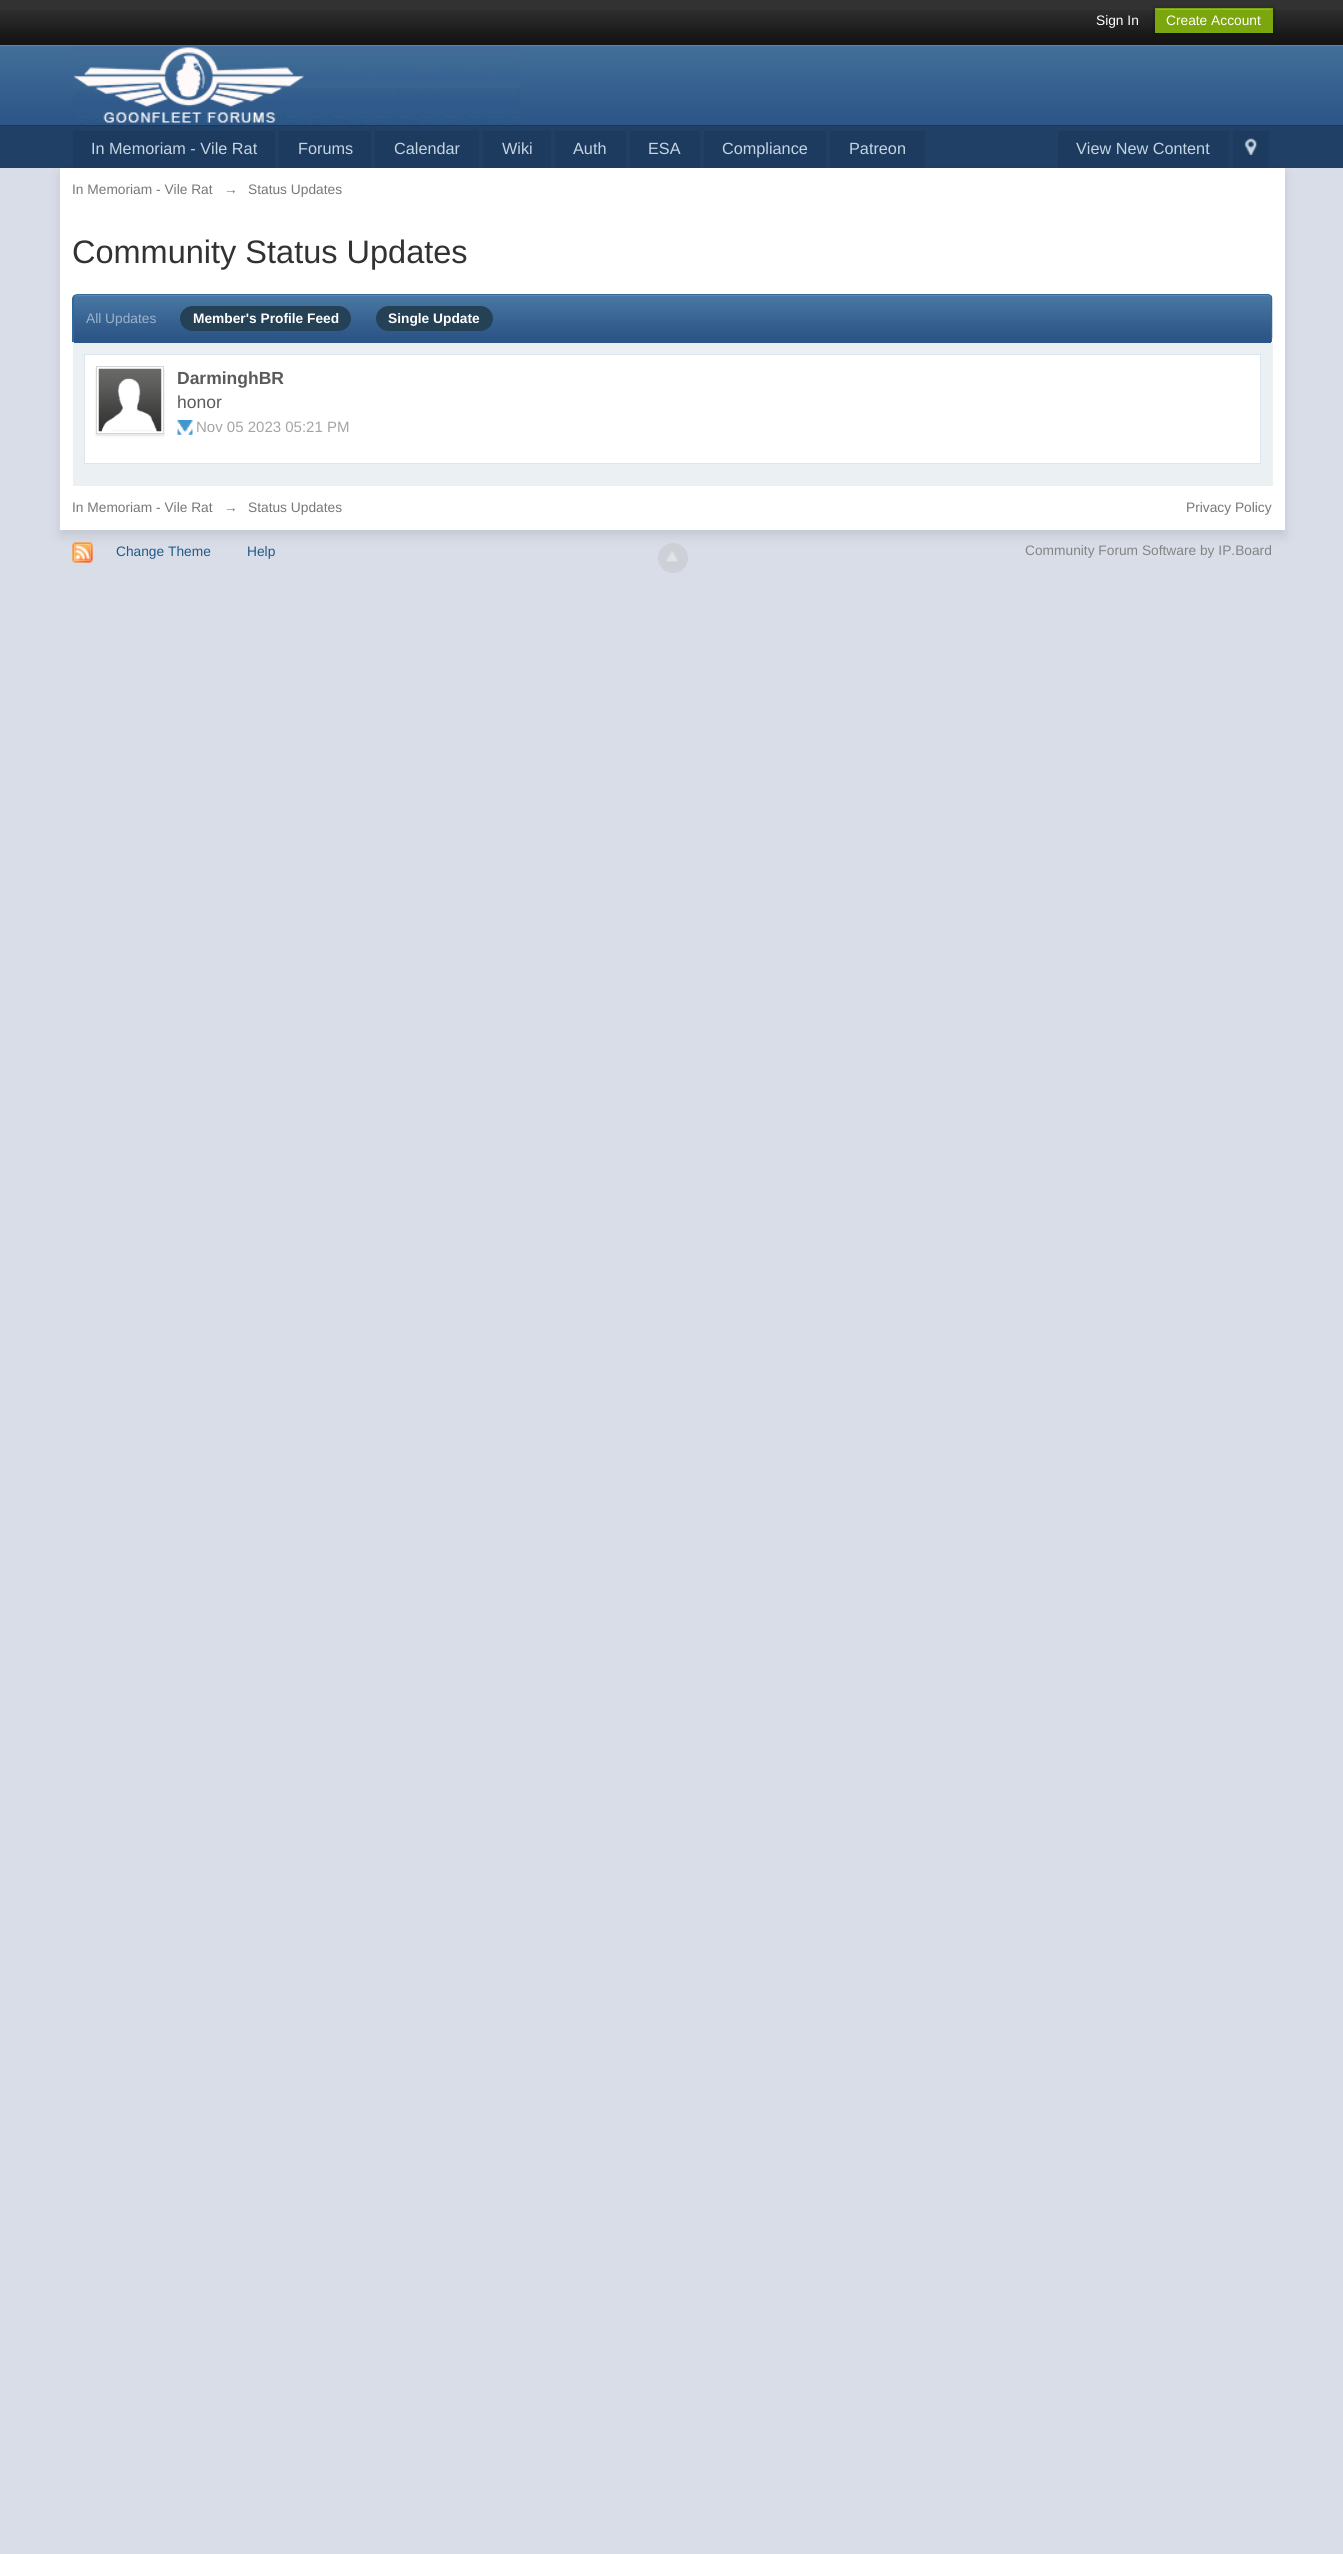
#include <cairo.h>
#include <math.h>
#include <stddef.h>

static cairo_t *ctx;

static void use_color(int r, int g, int b) {
    cairo_set_source_rgb(ctx, r / 255.0, g / 255.0, b / 255.0);
}

static void round_rect(double x, double y, double w, double h, double r) {
    cairo_new_sub_path(ctx);
    cairo_arc(ctx, x + w - r, y + h - r, r, 0, M_PI / 2);
    cairo_arc(ctx, x + r, y + h - r, r, M_PI / 2, M_PI);
    cairo_arc(ctx, x + r, y + r, r, M_PI, 1.5 * M_PI);
    cairo_arc(ctx, x + w - r, y + r, r, 1.5 * M_PI, 2 * M_PI);
    cairo_close_path(ctx);
}

static void shadow(double x, double y, double w, double h, double r, double blur, double alpha) {
    cairo_push_group_with_content(ctx, CAIRO_CONTENT_ALPHA);
    cairo_set_operator(ctx, CAIRO_OPERATOR_SOURCE);
    for (int i = 15; i >= -15 && fmin(w, h) + blur * i / 3 > 0; i -= 2) {
        double e = blur * i / 6;
        cairo_set_source_rgba(ctx, 0, 0, 0, alpha * erfc((i - 1) / 8.5) / 2);
        round_rect(x - e, y - e, w + 2 * e, h + 2 * e, fmax(0, fmin(r + e + blur * .6, fmin(w, h) / 2 + e)));
        cairo_fill(ctx);
    }
    cairo_pattern_t *soft = cairo_pop_group(ctx);
    cairo_mask(ctx, soft);
    cairo_pattern_destroy(soft);
}

static void picture(const char *path, double x, double y, double w, double h) {
    cairo_surface_t *image = cairo_image_surface_create_from_png(path);
    cairo_save(ctx);
    cairo_set_source_surface(ctx, image, x, y);
    cairo_rectangle(ctx, x, y, w, h);
    cairo_fill(ctx);
    cairo_restore(ctx);
    cairo_surface_destroy(image);
}

int main(void) {
    cairo_surface_t *surface = cairo_image_surface_create(CAIRO_FORMAT_RGB24, 1343, 2554);
    ctx = cairo_create(surface);
    cairo_font_options_t *options = cairo_font_options_create();
    cairo_font_options_set_hint_metrics(options, CAIRO_HINT_METRICS_OFF);
    cairo_font_options_set_hint_style(options, CAIRO_HINT_STYLE_NONE);
    cairo_set_font_options(ctx, options);
    cairo_set_miter_limit(ctx, 4);
    use_color(216, 221, 232);
    cairo_paint(ctx);
    use_color(50, 50, 50);
    cairo_rectangle(ctx, 0, 0, 1343, 10);
    cairo_fill(ctx);
    picture("img1.png", 0, 10, 1343, 35);
    cairo_select_font_face(ctx, "Liberation Sans", CAIRO_FONT_SLANT_NORMAL, CAIRO_FONT_WEIGHT_NORMAL);
    cairo_set_font_size(ctx, 13.75);
    use_color(255, 255, 255);
    cairo_move_to(ctx, 1096, 25);
    cairo_show_text(ctx, "Sign In");
    use_color(0, 0, 0);
    shadow(1155, 9, 118, 25, 0, 2.5, 0.4);
    use_color(123, 166, 13);
    cairo_rectangle(ctx, 1155, 8, 118, 25);
    cairo_fill(ctx);
    use_color(149, 184, 61);
    cairo_rectangle(ctx, 1156, 9, 115, 1);
    cairo_fill(ctx);
    use_color(255, 255, 255);
    cairo_move_to(ctx, 1166, 25);
    cairo_show_text(ctx, "Create Account");
    picture("img2.png", 0, 45, 1343, 80);
    use_color(27, 55, 89);
    cairo_rectangle(ctx, 0, 125, 1343, 1);
    cairo_fill(ctx);
    picture("img3.png", 73, 45, 447, 80);
    use_color(32, 64, 102);
    cairo_rectangle(ctx, 0, 126, 1343, 42);
    cairo_fill(ctx);
    use_color(0, 0, 0);
    shadow(60, 174, 1225, 362, 0, 5.5, 0.1);
    use_color(28, 59, 95);
    cairo_rectangle(ctx, 73, 131, 202, 37);
    cairo_fill(ctx);
    cairo_set_font_size(ctx, 16.25);
    use_color(197, 213, 226);
    cairo_move_to(ctx, 91, 154);
    cairo_show_text(ctx, "In Memoriam - Vile Rat");
    use_color(28, 59, 95);
    cairo_rectangle(ctx, 279, 131, 92, 37);
    cairo_fill(ctx);
    use_color(197, 213, 226);
    cairo_move_to(ctx, 298, 154);
    cairo_show_text(ctx, "Forums");
    use_color(28, 59, 95);
    cairo_rectangle(ctx, 375, 131, 104, 37);
    cairo_fill(ctx);
    use_color(197, 213, 226);
    cairo_move_to(ctx, 394, 154);
    cairo_show_text(ctx, "Calendar");
    use_color(28, 59, 95);
    cairo_rectangle(ctx, 483, 131, 68, 37);
    cairo_fill(ctx);
    use_color(197, 213, 226);
    cairo_move_to(ctx, 502, 154);
    cairo_show_text(ctx, "Wiki");
    use_color(28, 59, 95);
    cairo_rectangle(ctx, 555, 131, 71, 37);
    cairo_fill(ctx);
    use_color(197, 213, 226);
    cairo_move_to(ctx, 573, 154);
    cairo_show_text(ctx, "Auth");
    use_color(28, 59, 95);
    cairo_rectangle(ctx, 630, 131, 70, 37);
    cairo_fill(ctx);
    use_color(197, 213, 226);
    cairo_move_to(ctx, 648, 154);
    cairo_show_text(ctx, "ESA");
    use_color(28, 59, 95);
    cairo_rectangle(ctx, 704, 131, 122, 37);
    cairo_fill(ctx);
    use_color(197, 213, 226);
    cairo_move_to(ctx, 722, 154);
    cairo_show_text(ctx, "Compliance");
    use_color(28, 59, 95);
    cairo_rectangle(ctx, 830, 131, 95, 37);
    cairo_fill(ctx);
    use_color(197, 213, 226);
    cairo_move_to(ctx, 849, 154);
    cairo_show_text(ctx, "Patreon");
    use_color(28, 59, 95);
    cairo_rectangle(ctx, 1058, 131, 171, 37);
    cairo_fill(ctx);
    use_color(197, 213, 226);
    cairo_move_to(ctx, 1076, 154);
    cairo_show_text(ctx, "View New Content");
    use_color(28, 59, 95);
    cairo_rectangle(ctx, 1233, 131, 36, 37);
    cairo_fill(ctx);
    picture("img4.png", 1244, 138, 13, 17);
    use_color(255, 255, 255);
    cairo_rectangle(ctx, 60, 168, 1225, 362);
    cairo_fill(ctx);
    cairo_set_font_size(ctx, 13.75);
    use_color(119, 119, 119);
    cairo_move_to(ctx, 72, 194);
    cairo_show_text(ctx, "In Memoriam - Vile Rat");
    cairo_move_to(ctx, 224, 194);
    cairo_show_text(ctx, "→");
    cairo_move_to(ctx, 248, 194);
    cairo_show_text(ctx, "Status Updates");
    cairo_set_font_size(ctx, 32.5);
    use_color(50, 50, 50);
    cairo_move_to(ctx, 72, 263);
    cairo_show_text(ctx, "Community Status Updates");
    use_color(44, 86, 135);
    cairo_new_path(ctx);
    cairo_move_to(ctx, 78, 295);
    cairo_line_to(ctx, 1267, 295);
    cairo_curve_to(ctx, 1269, 295, 1271, 297, 1271, 299);
    cairo_line_to(ctx, 1271, 343);
    cairo_line_to(ctx, 74, 343);
    cairo_line_to(ctx, 74, 299);
    cairo_curve_to(ctx, 74, 297, 76, 295, 78, 295);
    cairo_close_path(ctx);
    cairo_fill(ctx);
    picture("img5.png", 72, 295, 1201, 44);
    use_color(82, 140, 188);
    cairo_new_path(ctx);
    cairo_move_to(ctx, 78, 296);
    cairo_line_to(ctx, 1268, 296);
    cairo_curve_to(ctx, 1270, 296, 1271, 298, 1271, 300);
    cairo_curve_to(ctx, 1271, 297, 1270, 295, 1267, 295);
    cairo_line_to(ctx, 78, 295);
    cairo_curve_to(ctx, 75, 295, 74, 297, 74, 300);
    cairo_curve_to(ctx, 74, 298, 75, 296, 78, 296);
    cairo_close_path(ctx);
    cairo_fill(ctx);
    use_color(49, 104, 151);
    cairo_set_fill_rule(ctx, CAIRO_FILL_RULE_EVEN_ODD);
    cairo_new_path(ctx);
    cairo_move_to(ctx, 78, 294);
    cairo_line_to(ctx, 1268, 294);
    cairo_curve_to(ctx, 1270, 294, 1272, 296, 1272, 299);
    cairo_line_to(ctx, 1272, 342);
    cairo_line_to(ctx, 72, 342);
    cairo_line_to(ctx, 72, 299);
    cairo_curve_to(ctx, 72, 296, 75, 294, 78, 294);
    cairo_close_path(ctx);
    cairo_move_to(ctx, 78, 295);
    cairo_line_to(ctx, 1268, 295);
    cairo_curve_to(ctx, 1270, 295, 1271, 297, 1271, 299);
    cairo_line_to(ctx, 1271, 342);
    cairo_line_to(ctx, 74, 342);
    cairo_line_to(ctx, 74, 299);
    cairo_curve_to(ctx, 74, 297, 75, 295, 78, 295);
    cairo_close_path(ctx);
    cairo_fill(ctx);
    cairo_set_font_size(ctx, 13.75);
    use_color(156, 178, 201);
    cairo_move_to(ctx, 86, 323);
    cairo_show_text(ctx, "All Updates");
    use_color(36, 65, 86);
    round_rect(180, 306, 171, 25, 12.5);
    cairo_fill(ctx);
    cairo_select_font_face(ctx, "Liberation Sans", CAIRO_FONT_SLANT_NORMAL, CAIRO_FONT_WEIGHT_BOLD);
    use_color(255, 255, 255);
    cairo_move_to(ctx, 193, 323);
    cairo_show_text(ctx, "Member's Profile Feed");
    use_color(36, 65, 86);
    round_rect(376, 306, 117, 25, 12.5);
    cairo_fill(ctx);
    use_color(255, 255, 255);
    cairo_move_to(ctx, 388, 323);
    cairo_show_text(ctx, "Single Update");
    use_color(235, 240, 243);
    cairo_rectangle(ctx, 73, 343, 1200, 143);
    cairo_fill(ctx);
    use_color(255, 255, 255);
    cairo_rectangle(ctx, 84.5, 354.5, 1176, 109);
    cairo_fill_preserve(ctx);
    use_color(219, 228, 239);
    cairo_set_line_width(ctx, 1);
    cairo_stroke(ctx);
    use_color(0, 0, 0);
    shadow(96, 369, 68, 67, 0, 1, 0.1);
    use_color(255, 255, 255);
    cairo_rectangle(ctx, 97, 368, 66, 65);
    cairo_fill(ctx);
    cairo_rectangle(ctx, 96.5, 366.5, 67, 67);
    use_color(213, 213, 213);
    cairo_stroke(ctx);
    picture("img6.png", 98, 368, 64, 64);
    cairo_set_font_size(ctx, 17.5);
    use_color(90, 90, 90);
    cairo_move_to(ctx, 177, 384);
    cairo_show_text(ctx, "DarminghBR");
    cairo_select_font_face(ctx, "Liberation Sans", CAIRO_FONT_SLANT_NORMAL, CAIRO_FONT_WEIGHT_NORMAL);
    cairo_move_to(ctx, 177, 408);
    cairo_show_text(ctx, "honor");
    picture("img7.png", 177, 420, 16, 15);
    cairo_set_font_size(ctx, 15);
    use_color(164, 164, 164);
    cairo_move_to(ctx, 196, 432);
    cairo_show_text(ctx, "Nov 05 2023 05:21 PM");
    cairo_set_font_size(ctx, 13.75);
    use_color(119, 119, 119);
    cairo_move_to(ctx, 72, 512);
    cairo_show_text(ctx, "In Memoriam - Vile Rat");
    cairo_move_to(ctx, 224, 512);
    cairo_show_text(ctx, "→");
    cairo_move_to(ctx, 248, 512);
    cairo_show_text(ctx, "Status Updates");
    cairo_move_to(ctx, 1186, 512);
    cairo_show_text(ctx, "Privacy Policy");
    picture("img8.png", 72, 542, 21, 21);
    use_color(34, 89, 133);
    cairo_move_to(ctx, 116, 556);
    cairo_show_text(ctx, "Change Theme");
    cairo_move_to(ctx, 247, 556);
    cairo_show_text(ctx, "Help");
    use_color(205, 208, 215);
    cairo_new_path(ctx);
    cairo_arc(ctx, 673, 558, 15, 0, 2 * M_PI);
    cairo_fill(ctx);
    picture("img9.png", 666, 551, 12, 11);
    use_color(132, 132, 132);
    cairo_move_to(ctx, 1025, 555);
    cairo_show_text(ctx, "Community Forum Software by IP.Board");
    cairo_surface_write_to_png(surface, "result.png");
    cairo_font_options_destroy(options);
    cairo_destroy(ctx);
    cairo_surface_destroy(surface);
    return 0;
}
